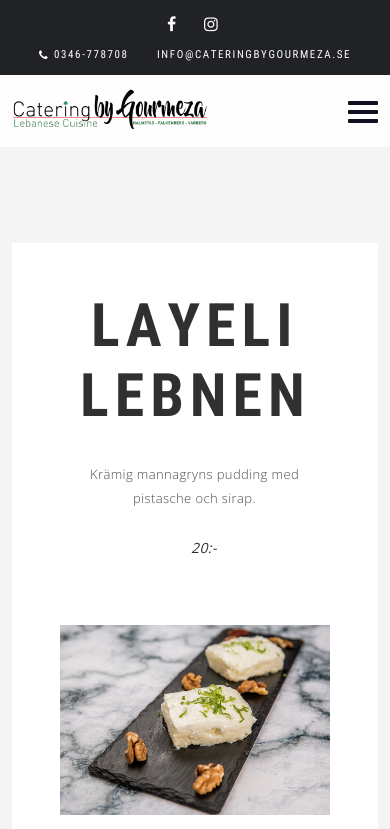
#include <cairo.h>
#include <math.h>
#include <stddef.h>

static cairo_t *ctx;

static void use_color(int r, int g, int b) {
    cairo_set_source_rgb(ctx, r / 255.0, g / 255.0, b / 255.0);
}

static void spaced_text(double x, double y, const char *s, double letter, double word) {
    cairo_move_to(ctx, x, y);
    while (*s) {
        char ch[5] = {0};
        int n = 0;
        do ch[n++] = *s++; while ((*s & 0xC0) == 0x80);
        cairo_show_text(ctx, ch);
        cairo_rel_move_to(ctx, letter + word * (*ch == ' '), 0);
    }
}

static void round_rect(double x, double y, double w, double h, double r) {
    cairo_new_sub_path(ctx);
    cairo_arc(ctx, x + w - r, y + h - r, r, 0, M_PI / 2);
    cairo_arc(ctx, x + r, y + h - r, r, M_PI / 2, M_PI);
    cairo_arc(ctx, x + r, y + r, r, M_PI, 1.5 * M_PI);
    cairo_arc(ctx, x + w - r, y + r, r, 1.5 * M_PI, 2 * M_PI);
    cairo_close_path(ctx);
}

static void picture(const char *path, double x, double y, double w, double h) {
    cairo_surface_t *image = cairo_image_surface_create_from_png(path);
    cairo_save(ctx);
    cairo_set_source_surface(ctx, image, x, y);
    cairo_rectangle(ctx, x, y, w, h);
    cairo_fill(ctx);
    cairo_restore(ctx);
    cairo_surface_destroy(image);
}

int main(void) {
    cairo_surface_t *surface = cairo_image_surface_create(CAIRO_FORMAT_RGB24, 390, 829);
    ctx = cairo_create(surface);
    cairo_font_options_t *options = cairo_font_options_create();
    cairo_font_options_set_hint_metrics(options, CAIRO_HINT_METRICS_OFF);
    cairo_font_options_set_hint_style(options, CAIRO_HINT_STYLE_NONE);
    cairo_set_font_options(ctx, options);
    cairo_set_miter_limit(ctx, 4);
    use_color(244, 244, 244);
    cairo_paint(ctx);
    use_color(32, 34, 38);
    cairo_rectangle(ctx, 0, 0, 390, 75);
    cairo_fill(ctx);
    picture("img1.png", 167, 16, 9, 16);
    picture("img2.png", 204, 17, 14, 15);
    picture("img3.png", 39, 50, 9, 9);
    cairo_select_font_face(ctx, "Roboto Condensed", CAIRO_FONT_SLANT_NORMAL, CAIRO_FONT_WEIGHT_NORMAL);
    cairo_set_font_size(ctx, 11);
    use_color(255, 255, 255);
    spaced_text(54, 58, "0346-778708", 1.6, 0);
    spaced_text(157, 58, "INFO@CATERINGBYGOURMEZA.SE", 1.6, 0);
    use_color(254, 254, 254);
    cairo_rectangle(ctx, 0, 75, 390, 72);
    cairo_fill(ctx);
    picture("img4.png", 12, 89, 195, 41);
    use_color(16, 16, 32);
    round_rect(348, 110, 30, 4, 1);
    cairo_fill(ctx);
    round_rect(348, 101, 30, 4, 1);
    cairo_fill(ctx);
    round_rect(348, 119, 30, 4, 1);
    cairo_fill(ctx);
    use_color(255, 255, 255);
    cairo_rectangle(ctx, 12, 243, 366, 586);
    cairo_fill(ctx);
    cairo_select_font_face(ctx, "Roboto Condensed", CAIRO_FONT_SLANT_NORMAL, CAIRO_FONT_WEIGHT_BOLD);
    cairo_set_font_size(ctx, 60);
    use_color(48, 48, 51);
    spaced_text(91, 346, "LAYELI", 6, 0);
    spaced_text(80, 416, "LEBNEN", 6, 0);
    cairo_select_font_face(ctx, "Open Sans Light", CAIRO_FONT_SLANT_NORMAL, CAIRO_FONT_WEIGHT_NORMAL);
    cairo_set_font_size(ctx, 13);
    use_color(74, 76, 78);
    spaced_text(90, 479, "Krämig mannagryns pudding med", 0.4, 0);
    spaced_text(133, 503, "pistasche och sirap.", 0.4, 0);
    cairo_select_font_face(ctx, "Open Sans", CAIRO_FONT_SLANT_ITALIC, CAIRO_FONT_WEIGHT_NORMAL);
    cairo_set_font_size(ctx, 14);
    use_color(48, 48, 51);
    spaced_text(191, 553, "20:-", 0.4, 0);
    picture("img5.png", 60, 625, 270, 190);
    cairo_surface_write_to_png(surface, "result.png");
    cairo_font_options_destroy(options);
    cairo_destroy(ctx);
    cairo_surface_destroy(surface);
    return 0;
}
